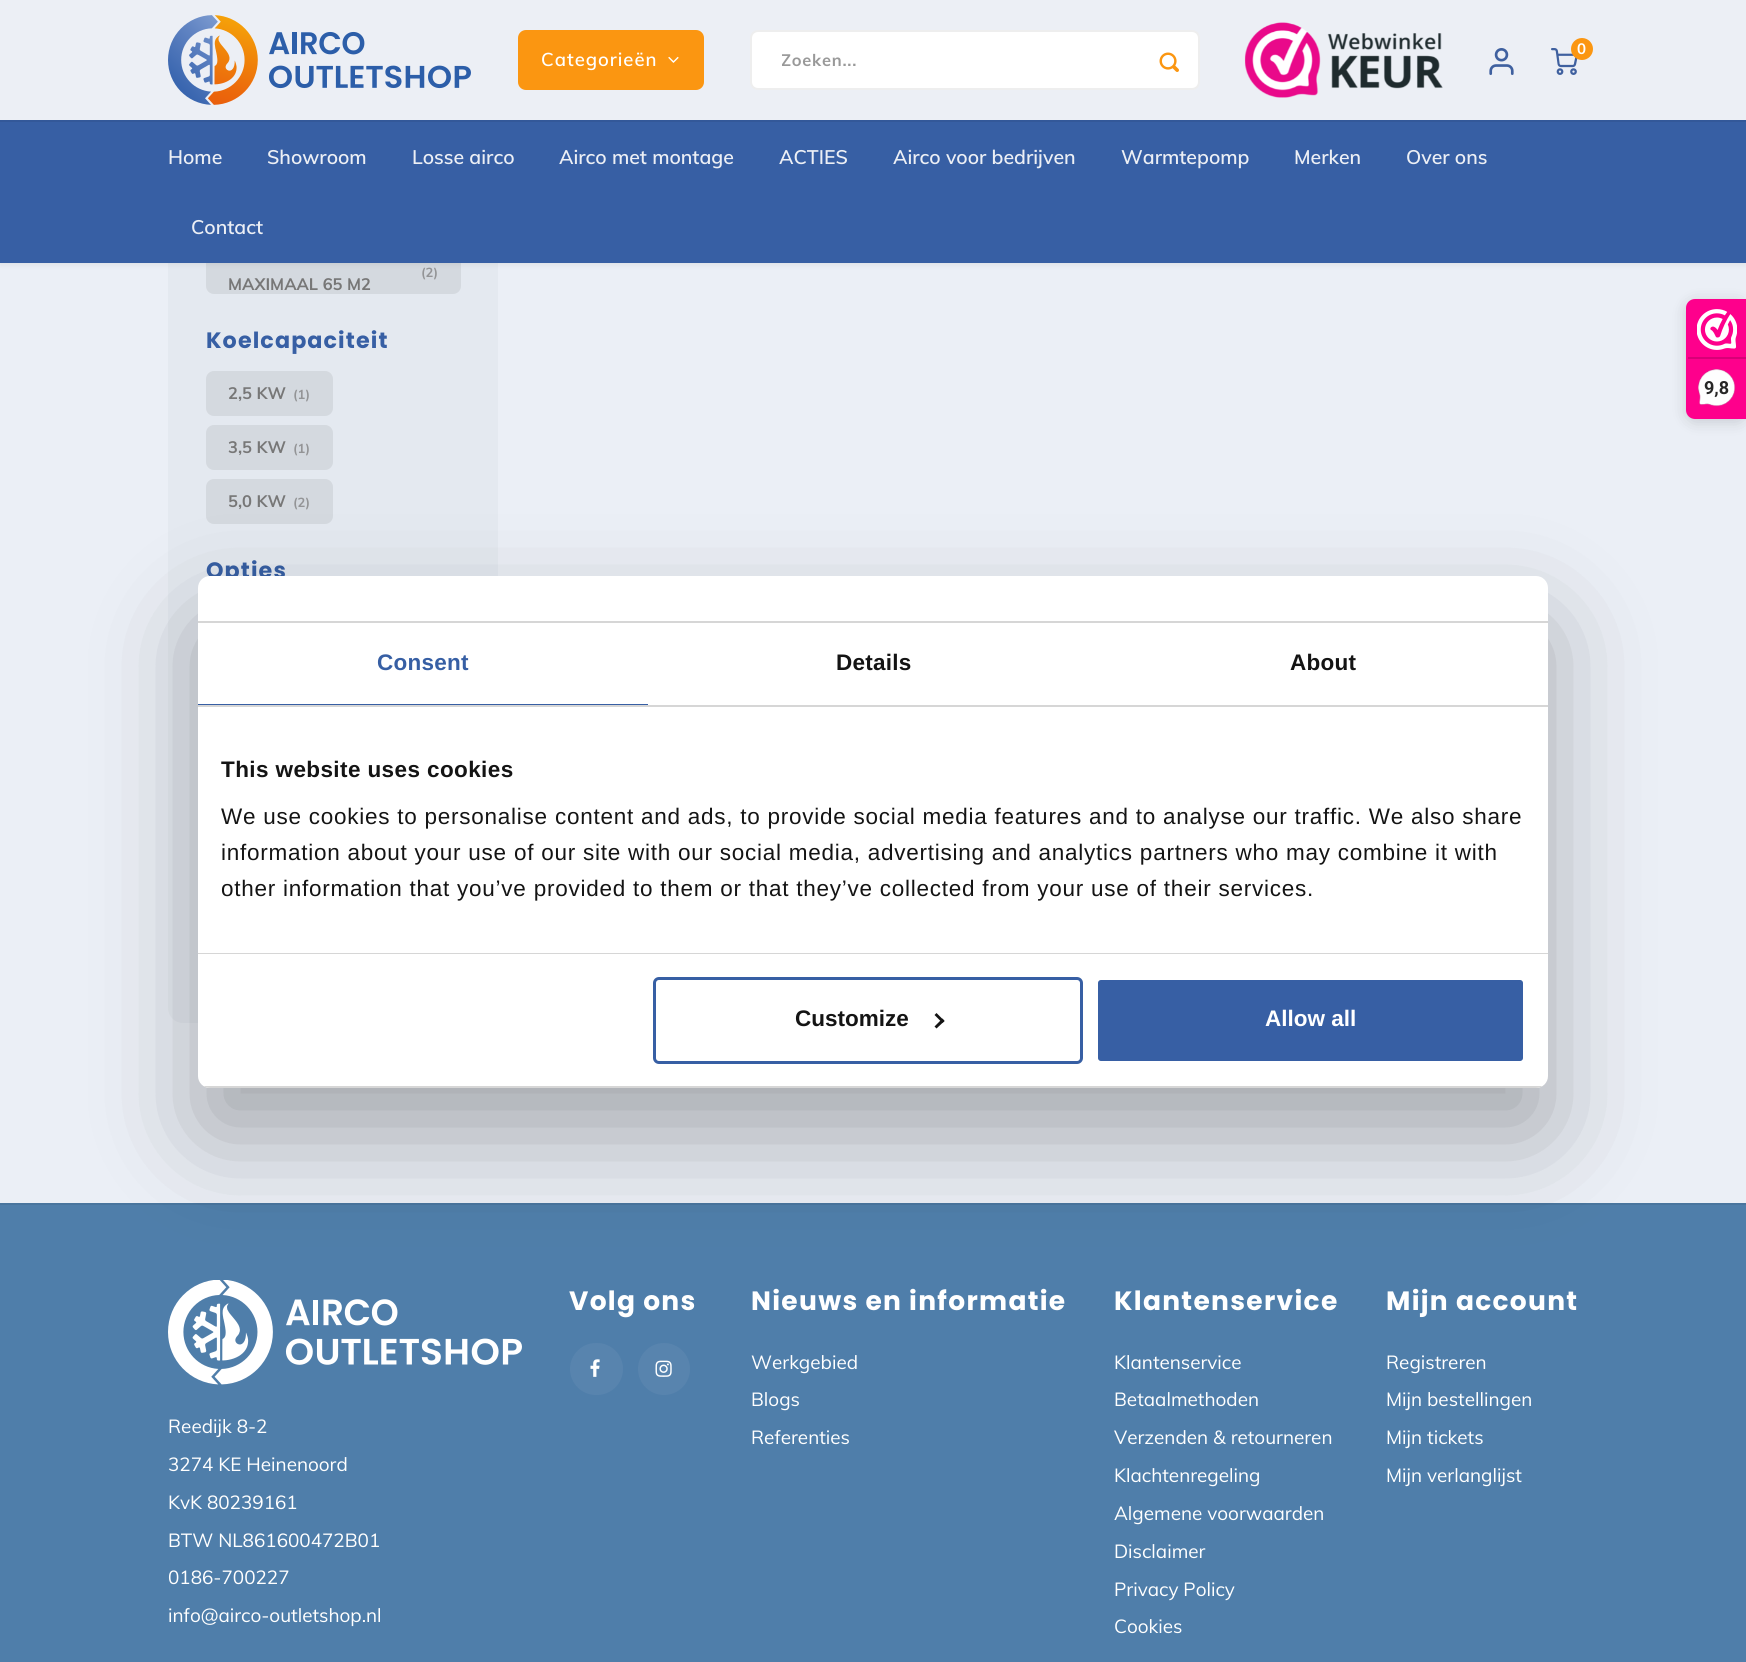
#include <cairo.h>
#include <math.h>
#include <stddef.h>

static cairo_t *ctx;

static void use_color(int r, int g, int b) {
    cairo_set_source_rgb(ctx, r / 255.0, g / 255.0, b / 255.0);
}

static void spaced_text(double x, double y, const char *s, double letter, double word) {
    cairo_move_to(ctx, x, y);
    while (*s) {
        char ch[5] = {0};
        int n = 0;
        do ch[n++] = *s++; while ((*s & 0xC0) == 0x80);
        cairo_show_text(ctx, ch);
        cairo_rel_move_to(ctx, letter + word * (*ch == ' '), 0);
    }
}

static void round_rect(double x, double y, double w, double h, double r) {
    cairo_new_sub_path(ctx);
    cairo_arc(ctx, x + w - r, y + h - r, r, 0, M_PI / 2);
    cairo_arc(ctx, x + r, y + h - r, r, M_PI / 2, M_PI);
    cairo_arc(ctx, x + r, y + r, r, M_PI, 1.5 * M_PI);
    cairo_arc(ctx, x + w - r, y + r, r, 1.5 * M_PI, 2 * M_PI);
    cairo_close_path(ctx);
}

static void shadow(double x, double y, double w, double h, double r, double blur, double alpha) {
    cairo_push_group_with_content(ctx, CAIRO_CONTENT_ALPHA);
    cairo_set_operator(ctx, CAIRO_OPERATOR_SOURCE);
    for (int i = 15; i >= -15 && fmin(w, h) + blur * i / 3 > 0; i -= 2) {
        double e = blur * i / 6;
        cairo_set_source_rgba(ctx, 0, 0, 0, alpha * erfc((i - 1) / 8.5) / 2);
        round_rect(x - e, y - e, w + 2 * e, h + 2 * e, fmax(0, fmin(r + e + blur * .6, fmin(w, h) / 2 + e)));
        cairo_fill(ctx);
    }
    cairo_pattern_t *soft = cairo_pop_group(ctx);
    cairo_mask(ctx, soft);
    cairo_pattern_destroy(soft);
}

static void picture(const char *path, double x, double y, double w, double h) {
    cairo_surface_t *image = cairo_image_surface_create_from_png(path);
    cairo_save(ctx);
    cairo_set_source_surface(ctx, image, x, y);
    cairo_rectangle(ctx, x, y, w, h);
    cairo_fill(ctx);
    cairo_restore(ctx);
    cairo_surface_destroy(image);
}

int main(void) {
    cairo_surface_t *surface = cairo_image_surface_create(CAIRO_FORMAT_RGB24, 1746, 1662);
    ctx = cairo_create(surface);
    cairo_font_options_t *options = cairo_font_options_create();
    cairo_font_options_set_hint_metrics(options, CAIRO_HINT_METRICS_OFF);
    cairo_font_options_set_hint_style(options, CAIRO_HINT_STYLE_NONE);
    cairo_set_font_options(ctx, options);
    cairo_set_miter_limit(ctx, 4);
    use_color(235, 239, 246);
    cairo_paint(ctx);
    use_color(228, 233, 240);
    round_rect(168, -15, 330, 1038, 15);
    cairo_fill(ctx);
    use_color(212, 217, 223);
    round_rect(206, 249, 255, 45, 8);
    cairo_fill(ctx);
    use_color(0, 0, 0);
    shadow(0, 2, 1746, 262, 0, 3, 0.08);
    use_color(236, 239, 245);
    cairo_rectangle(ctx, 0, 0, 1746, 120);
    cairo_fill(ctx);
    picture("img1.png", 168, 15, 303, 90);
    picture("img2.png", 1244, 22, 199, 76);
    picture("img3.png", 1489, 48, 25, 27);
    picture("img4.png", 1551, 48, 27, 27);
    use_color(251, 150, 17);
    cairo_arc(ctx, 1582, 49, 11, 0, 2 * M_PI);
    cairo_fill(ctx);
    cairo_select_font_face(ctx, "Muli", CAIRO_FONT_SLANT_NORMAL, CAIRO_FONT_WEIGHT_BOLD);
    cairo_set_font_size(ctx, 15);
    use_color(255, 255, 255);
    cairo_move_to(ctx, 1577, 54);
    cairo_show_text(ctx, "0");
    use_color(251, 150, 17);
    round_rect(518, 30, 186, 60, 8);
    cairo_fill(ctx);
    cairo_select_font_face(ctx, "Muli SemiBold", CAIRO_FONT_SLANT_NORMAL, CAIRO_FONT_WEIGHT_NORMAL);
    cairo_set_font_size(ctx, 18.5);
    use_color(255, 255, 255);
    spaced_text(541, 66, "Categorieën", 1, 0);
    picture("img5.png", 668, 56, 11, 7);
    round_rect(750, 30, 450, 60, 8);
    cairo_fill(ctx);
    round_rect(751, 31, 448, 58, 7);
    cairo_set_source_rgba(ctx, 0, 0, 0, 0.07);
    cairo_stroke(ctx);
    cairo_save(ctx);
    cairo_rectangle(ctx, 782, 50, 357, 21);
    cairo_clip(ctx);
    cairo_select_font_face(ctx, "Muli", CAIRO_FONT_SLANT_NORMAL, CAIRO_FONT_WEIGHT_BOLD);
    cairo_set_font_size(ctx, 16.5);
    use_color(153, 153, 153);
    spaced_text(781, 66, "Zoeken...", 0.75, 0);
    cairo_restore(ctx);
    picture("img6.png", 1159, 52, 20, 20);
    use_color(55, 95, 164);
    cairo_rectangle(ctx, 0, 122, 1746, 141);
    cairo_fill(ctx);
    use_color(51, 88, 153);
    cairo_rectangle(ctx, 0, 120, 1746, 2);
    cairo_fill(ctx);
    cairo_set_font_size(ctx, 19.5);
    use_color(236, 239, 245);
    cairo_move_to(ctx, 168, 164);
    cairo_show_text(ctx, "Home");
    cairo_move_to(ctx, 267, 164);
    cairo_show_text(ctx, "Showroom");
    cairo_move_to(ctx, 412, 164);
    cairo_show_text(ctx, "Losse airco");
    cairo_move_to(ctx, 559, 164);
    cairo_show_text(ctx, "Airco met montage");
    cairo_move_to(ctx, 779, 164);
    cairo_show_text(ctx, "ACTIES");
    cairo_move_to(ctx, 893, 164);
    cairo_show_text(ctx, "Airco voor bedrijven");
    cairo_move_to(ctx, 1121, 164);
    cairo_show_text(ctx, "Warmtepomp");
    cairo_move_to(ctx, 1294, 164);
    cairo_show_text(ctx, "Merken");
    cairo_move_to(ctx, 1406, 164);
    cairo_show_text(ctx, "Over ons");
    cairo_move_to(ctx, 191, 234);
    cairo_show_text(ctx, "Contact");
    cairo_select_font_face(ctx, "Muli", CAIRO_FONT_SLANT_NORMAL, CAIRO_FONT_WEIGHT_BOLD);
    cairo_set_font_size(ctx, 13);
    use_color(147, 148, 150);
    cairo_move_to(ctx, 421, 277);
    cairo_show_text(ctx, "(2)");
    cairo_set_font_size(ctx, 16.5);
    use_color(119, 119, 119);
    cairo_move_to(ctx, 228, 290);
    cairo_show_text(ctx, "MAXIMAAL 65 M2");
    cairo_select_font_face(ctx, "Poppins", CAIRO_FONT_SLANT_NORMAL, CAIRO_FONT_WEIGHT_BOLD);
    cairo_set_font_size(ctx, 22.25);
    use_color(55, 95, 164);
    spaced_text(206, 348, "Koelcapaciteit", 1.1, 0);
    use_color(212, 217, 223);
    round_rect(206, 371, 127, 45, 8);
    cairo_fill(ctx);
    cairo_select_font_face(ctx, "Muli", CAIRO_FONT_SLANT_NORMAL, CAIRO_FONT_WEIGHT_BOLD);
    cairo_set_font_size(ctx, 16.5);
    use_color(119, 119, 119);
    cairo_move_to(ctx, 228, 399);
    cairo_show_text(ctx, "2,5 KW");
    cairo_set_font_size(ctx, 13);
    use_color(147, 148, 150);
    cairo_move_to(ctx, 293, 399);
    cairo_show_text(ctx, "(1)");
    use_color(212, 217, 223);
    round_rect(206, 425, 127, 45, 8);
    cairo_fill(ctx);
    cairo_set_font_size(ctx, 16.5);
    use_color(119, 119, 119);
    cairo_move_to(ctx, 228, 453);
    cairo_show_text(ctx, "3,5 KW");
    cairo_set_font_size(ctx, 13);
    use_color(147, 148, 150);
    cairo_move_to(ctx, 293, 453);
    cairo_show_text(ctx, "(1)");
    use_color(212, 217, 223);
    round_rect(206, 479, 127, 45, 8);
    cairo_fill(ctx);
    cairo_set_font_size(ctx, 16.5);
    use_color(119, 119, 119);
    cairo_move_to(ctx, 228, 507);
    cairo_show_text(ctx, "5,0 KW");
    cairo_set_font_size(ctx, 13);
    use_color(147, 148, 150);
    cairo_move_to(ctx, 293, 507);
    cairo_show_text(ctx, "(2)");
    cairo_select_font_face(ctx, "Poppins", CAIRO_FONT_SLANT_NORMAL, CAIRO_FONT_WEIGHT_BOLD);
    cairo_set_font_size(ctx, 22.25);
    use_color(55, 95, 164);
    spaced_text(206, 578, "Opties", 1.1, 0);
    use_color(0, 0, 0);
    shadow(1686, 302, 60, 120, 9, 7.5, 0.15);
    use_color(254, 0, 140);
    cairo_new_path(ctx);
    cairo_move_to(ctx, 1695, 299);
    cairo_line_to(ctx, 1746, 299);
    cairo_line_to(ctx, 1746, 419);
    cairo_line_to(ctx, 1695, 419);
    cairo_curve_to(ctx, 1690, 419, 1686, 415, 1686, 410);
    cairo_line_to(ctx, 1686, 308);
    cairo_curve_to(ctx, 1686, 303, 1690, 299, 1695, 299);
    cairo_close_path(ctx);
    cairo_fill(ctx);
    picture("img7.png", 1697, 309, 40, 41);
    use_color(216, 0, 119);
    cairo_rectangle(ctx, 1688, 357, 58, 2);
    cairo_fill(ctx);
    picture("img8.png", 1698, 369, 38, 38);
    cairo_select_font_face(ctx, "Roboto", CAIRO_FONT_SLANT_NORMAL, CAIRO_FONT_WEIGHT_BOLD);
    cairo_set_font_size(ctx, 18);
    use_color(39, 38, 38);
    cairo_move_to(ctx, 1704, 394);
    cairo_show_text(ctx, "9,8");
    use_color(79, 126, 170);
    cairo_rectangle(ctx, 0, 1205, 1746, 457);
    cairo_fill(ctx);
    use_color(73, 117, 158);
    cairo_rectangle(ctx, 0, 1203, 1746, 2);
    cairo_fill(ctx);
    picture("img11.png", 168, 1280, 354, 105);
    use_color(0, 0, 0);
    shadow(198, 624, 1350, 512, 12, 51, 0.3);
    use_color(255, 255, 255);
    round_rect(198, 576, 1350, 512, 12);
    cairo_fill(ctx);
    use_color(214, 214, 214);
    cairo_rectangle(ctx, 198, 621, 1350, 2);
    cairo_fill(ctx);
    cairo_rectangle(ctx, 198, 705, 1350, 2);
    cairo_fill(ctx);
    use_color(55, 95, 164);
    cairo_rectangle(ctx, 198, 704, 450, 1);
    cairo_fill(ctx);
    cairo_select_font_face(ctx, "Liberation Sans", CAIRO_FONT_SLANT_NORMAL, CAIRO_FONT_WEIGHT_BOLD);
    cairo_set_font_size(ctx, 22.5);
    spaced_text(377, 670, "Consent", 0.25, 0);
    use_color(20, 20, 20);
    spaced_text(836, 670, "Details", 0.25, 0);
    spaced_text(1290, 670, "About", 0.25, 0);
    use_color(214, 214, 214);
    cairo_rectangle(ctx, 198, 953, 1350, 1);
    cairo_fill(ctx);
    use_color(20, 20, 20);
    spaced_text(221, 777, "This website uses cookies", 0.4, 0);
    cairo_select_font_face(ctx, "Liberation Sans", CAIRO_FONT_SLANT_NORMAL, CAIRO_FONT_WEIGHT_NORMAL);
    spaced_text(221, 824, "We use cookies to personalise content and ads, to provide social media features and to analyse our traffic. We also share", 0.75, 0);
    spaced_text(221, 860, "information about your use of our site with our social media, advertising and analytics partners who may combine it with", 0.75, 0);
    spaced_text(221, 896, "other information that you’ve provided to them or that they’ve collected from your use of their services.", 0.75, 0);
    cairo_save(ctx);
    round_rect(198, 576, 1350, 512, 12);
    cairo_clip(ctx);
    use_color(214, 214, 214);
    cairo_rectangle(ctx, 198, 1086, 1350, 2);
    cairo_fill(ctx);
    cairo_restore(ctx);
    round_rect(654.5, 978.5, 427, 84, 4.5);
    use_color(55, 95, 164);
    cairo_set_line_width(ctx, 3);
    cairo_stroke(ctx);
    cairo_select_font_face(ctx, "Liberation Sans", CAIRO_FONT_SLANT_NORMAL, CAIRO_FONT_WEIGHT_BOLD);
    use_color(20, 20, 20);
    cairo_move_to(ctx, 795, 1026);
    cairo_show_text(ctx, "Customize");
    cairo_new_path(ctx);
    cairo_move_to(ctx, 936.5, 1013);
    cairo_line_to(ctx, 944.5, 1021);
    cairo_line_to(ctx, 942.5, 1023);
    cairo_line_to(ctx, 934.5, 1015);
    cairo_close_path(ctx);
    cairo_fill(ctx);
    cairo_new_path(ctx);
    cairo_move_to(ctx, 942.5, 1018.5);
    cairo_line_to(ctx, 944.5, 1021);
    cairo_line_to(ctx, 936.5, 1028.5);
    cairo_line_to(ctx, 934.5, 1026.5);
    cairo_close_path(ctx);
    cairo_fill(ctx);
    use_color(55, 95, 164);
    round_rect(1096.5, 978.5, 428, 84, 4.5);
    cairo_fill_preserve(ctx);
    use_color(255, 255, 255);
    cairo_stroke(ctx);
    cairo_move_to(ctx, 1265, 1026);
    cairo_show_text(ctx, "Allow all");
    cairo_select_font_face(ctx, "Poppins", CAIRO_FONT_SLANT_NORMAL, CAIRO_FONT_WEIGHT_BOLD);
    cairo_set_font_size(ctx, 26.5);
    spaced_text(569, 1310, "Volg ons", 1.3, 0);
    use_color(88, 132, 174);
    round_rect(570, 1343, 53, 52, 26);
    cairo_fill(ctx);
    picture("img9.png", 590, 1359, 10, 18);
    cairo_arc(ctx, 664, 1369, 26, 0, 2 * M_PI);
    cairo_fill(ctx);
    picture("img10.png", 655, 1360, 17, 17);
    use_color(255, 255, 255);
    spaced_text(751, 1310, "Nieuws en informatie", 1.3, 0);
    cairo_select_font_face(ctx, "Muli", CAIRO_FONT_SLANT_NORMAL, CAIRO_FONT_WEIGHT_NORMAL);
    cairo_set_font_size(ctx, 18.9);
    cairo_move_to(ctx, 751, 1369);
    cairo_show_text(ctx, "Werkgebied");
    cairo_move_to(ctx, 751, 1406);
    cairo_show_text(ctx, "Blogs");
    cairo_move_to(ctx, 751, 1444);
    cairo_show_text(ctx, "Referenties");
    cairo_select_font_face(ctx, "Poppins", CAIRO_FONT_SLANT_NORMAL, CAIRO_FONT_WEIGHT_BOLD);
    cairo_set_font_size(ctx, 26.5);
    spaced_text(1114, 1310, "Klantenservice", 1.3, 0);
    cairo_select_font_face(ctx, "Muli", CAIRO_FONT_SLANT_NORMAL, CAIRO_FONT_WEIGHT_NORMAL);
    cairo_set_font_size(ctx, 18.9);
    cairo_move_to(ctx, 1114, 1369);
    cairo_show_text(ctx, "Klantenservice");
    cairo_move_to(ctx, 1114, 1406);
    cairo_show_text(ctx, "Betaalmethoden");
    cairo_move_to(ctx, 1114, 1444);
    cairo_show_text(ctx, "Verzenden & retourneren");
    cairo_move_to(ctx, 1114, 1482);
    cairo_show_text(ctx, "Klachtenregeling");
    cairo_move_to(ctx, 1114, 1520);
    cairo_show_text(ctx, "Algemene voorwaarden");
    cairo_move_to(ctx, 1114, 1558);
    cairo_show_text(ctx, "Disclaimer");
    cairo_move_to(ctx, 1114, 1596);
    cairo_show_text(ctx, "Privacy Policy");
    cairo_move_to(ctx, 1114, 1633);
    cairo_show_text(ctx, "Cookies");
    cairo_select_font_face(ctx, "Poppins", CAIRO_FONT_SLANT_NORMAL, CAIRO_FONT_WEIGHT_BOLD);
    cairo_set_font_size(ctx, 26.5);
    spaced_text(1386, 1310, "Mijn account", 1.3, 0);
    cairo_select_font_face(ctx, "Muli", CAIRO_FONT_SLANT_NORMAL, CAIRO_FONT_WEIGHT_NORMAL);
    cairo_set_font_size(ctx, 18.9);
    cairo_move_to(ctx, 1386, 1369);
    cairo_show_text(ctx, "Registreren");
    cairo_move_to(ctx, 1386, 1406);
    cairo_show_text(ctx, "Mijn bestellingen");
    cairo_move_to(ctx, 1386, 1444);
    cairo_show_text(ctx, "Mijn tickets");
    cairo_move_to(ctx, 1386, 1482);
    cairo_show_text(ctx, "Mijn verlanglijst");
    cairo_move_to(ctx, 168, 1433);
    cairo_show_text(ctx, "Reedijk 8-2");
    cairo_move_to(ctx, 168, 1471);
    cairo_show_text(ctx, "3274 KE Heinenoord");
    cairo_move_to(ctx, 168, 1509);
    cairo_show_text(ctx, "KvK 80239161");
    cairo_move_to(ctx, 168, 1547);
    cairo_show_text(ctx, "BTW NL861600472B01");
    cairo_move_to(ctx, 168, 1584);
    cairo_show_text(ctx, "0186-700227");
    cairo_move_to(ctx, 168, 1622);
    cairo_show_text(ctx, "info@airco-outletshop.nl");
    cairo_surface_write_to_png(surface, "result.png");
    cairo_font_options_destroy(options);
    cairo_destroy(ctx);
    cairo_surface_destroy(surface);
    return 0;
}
